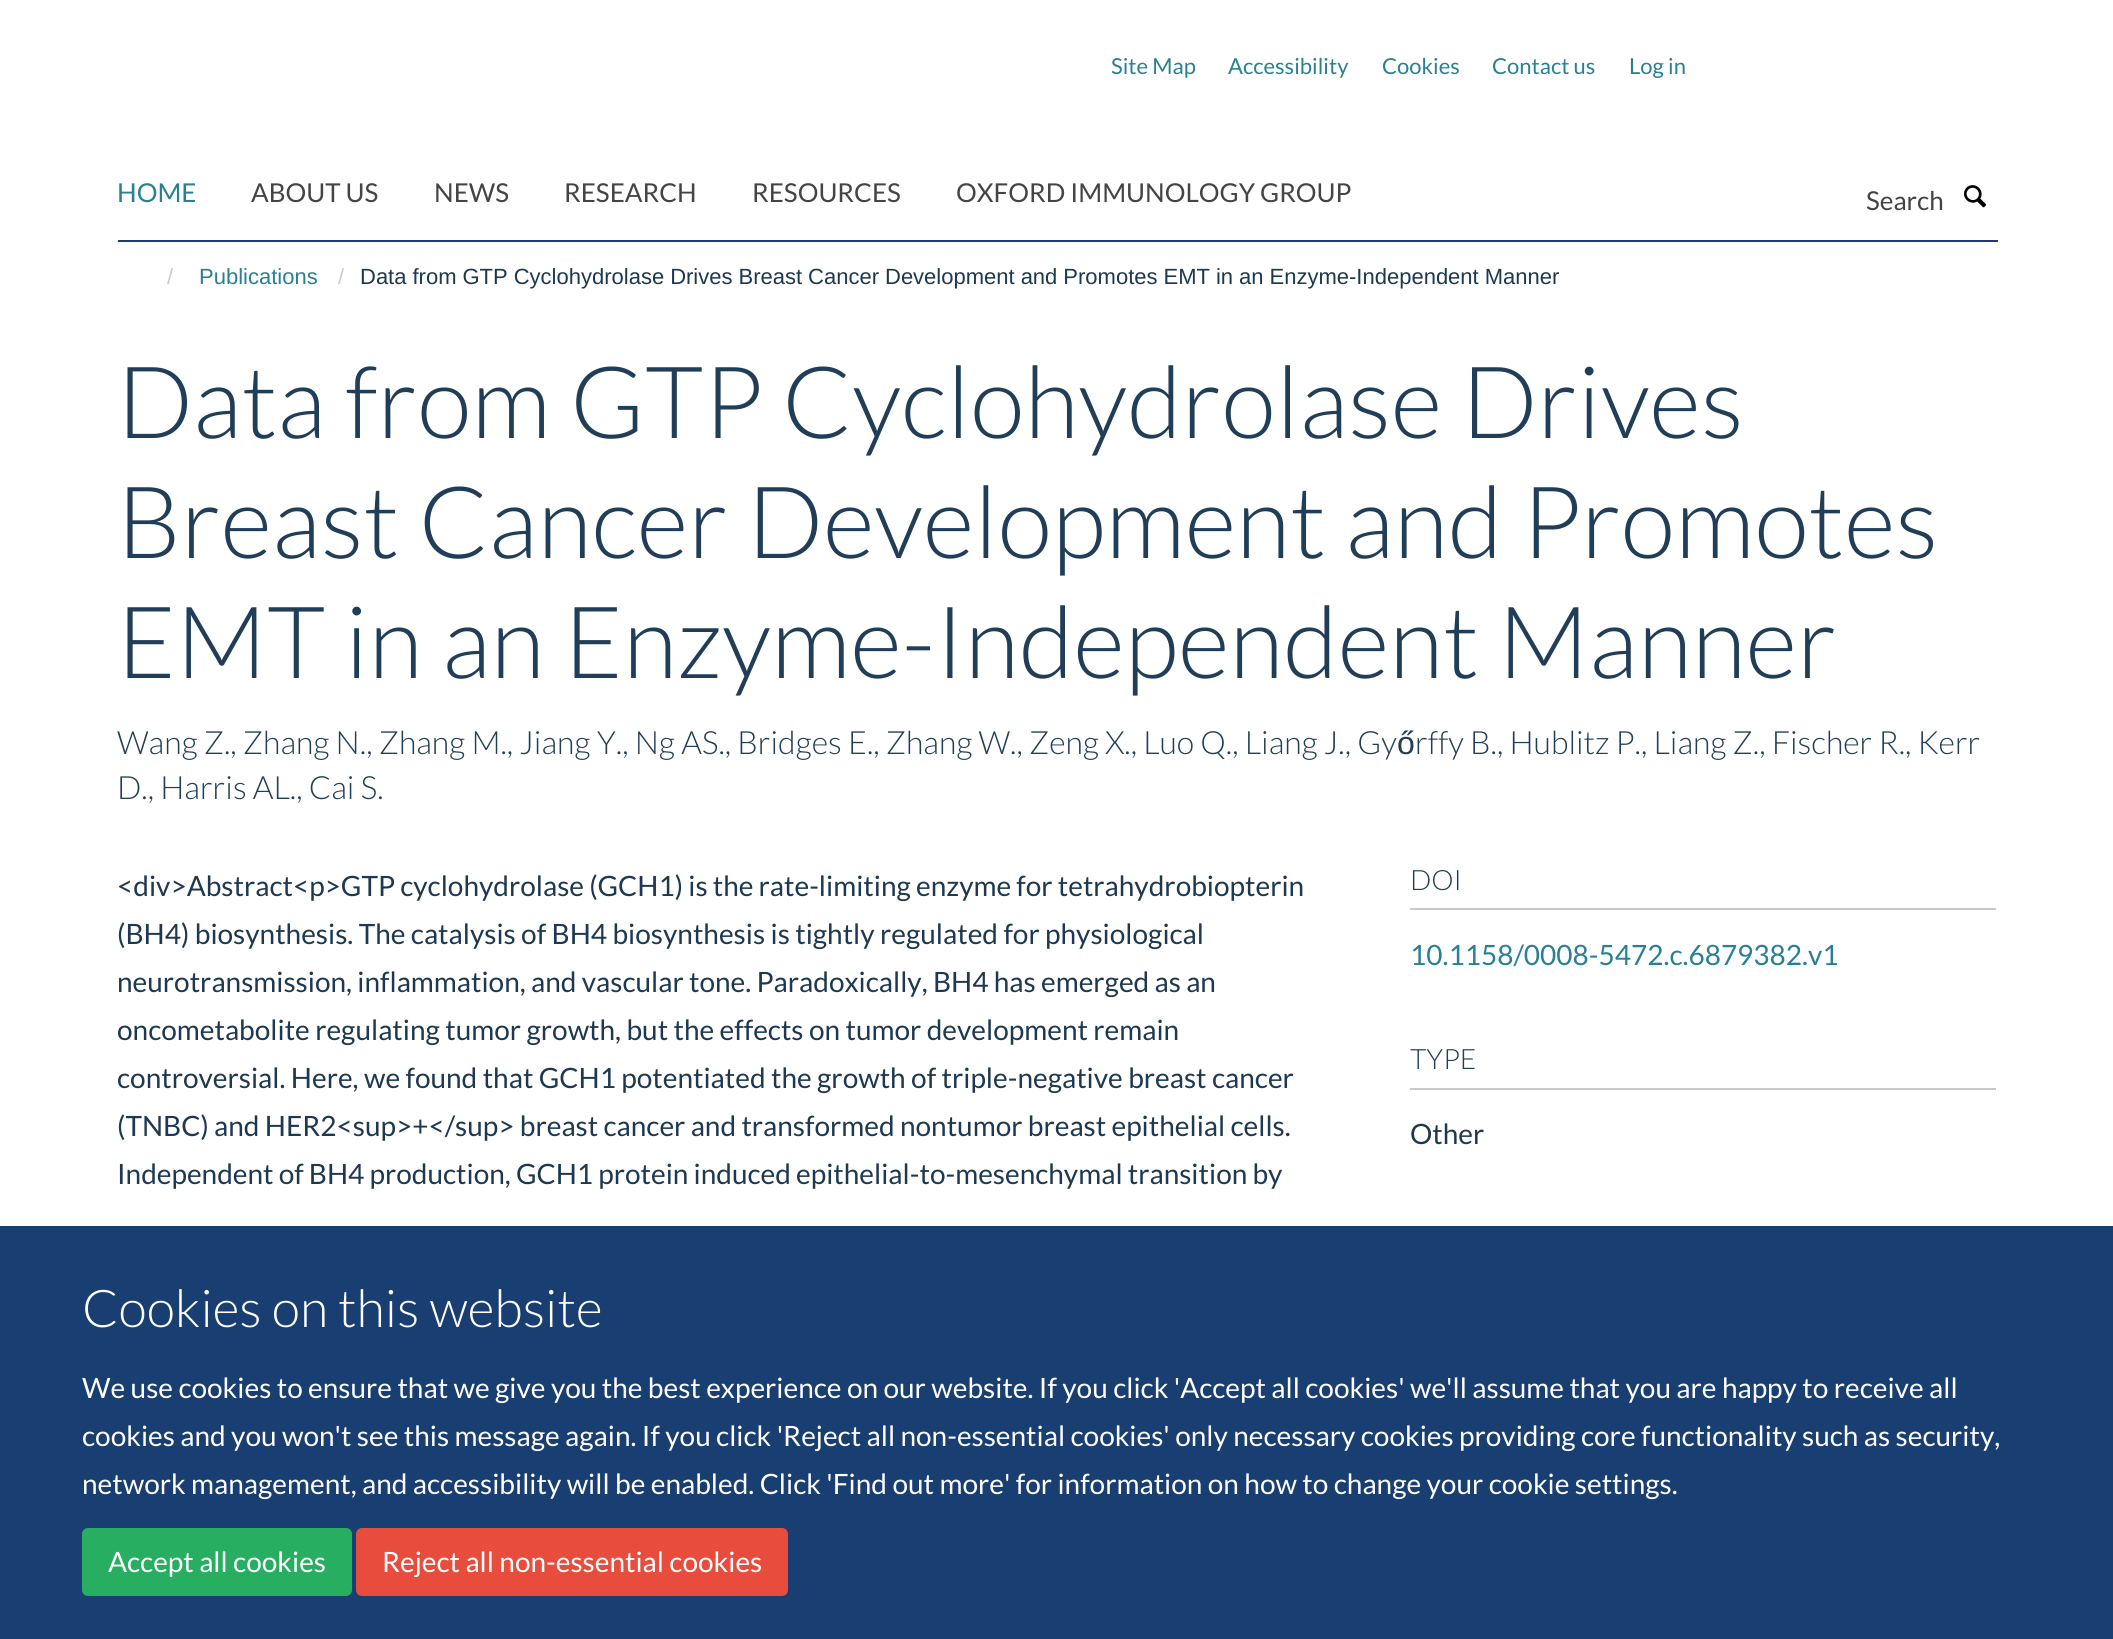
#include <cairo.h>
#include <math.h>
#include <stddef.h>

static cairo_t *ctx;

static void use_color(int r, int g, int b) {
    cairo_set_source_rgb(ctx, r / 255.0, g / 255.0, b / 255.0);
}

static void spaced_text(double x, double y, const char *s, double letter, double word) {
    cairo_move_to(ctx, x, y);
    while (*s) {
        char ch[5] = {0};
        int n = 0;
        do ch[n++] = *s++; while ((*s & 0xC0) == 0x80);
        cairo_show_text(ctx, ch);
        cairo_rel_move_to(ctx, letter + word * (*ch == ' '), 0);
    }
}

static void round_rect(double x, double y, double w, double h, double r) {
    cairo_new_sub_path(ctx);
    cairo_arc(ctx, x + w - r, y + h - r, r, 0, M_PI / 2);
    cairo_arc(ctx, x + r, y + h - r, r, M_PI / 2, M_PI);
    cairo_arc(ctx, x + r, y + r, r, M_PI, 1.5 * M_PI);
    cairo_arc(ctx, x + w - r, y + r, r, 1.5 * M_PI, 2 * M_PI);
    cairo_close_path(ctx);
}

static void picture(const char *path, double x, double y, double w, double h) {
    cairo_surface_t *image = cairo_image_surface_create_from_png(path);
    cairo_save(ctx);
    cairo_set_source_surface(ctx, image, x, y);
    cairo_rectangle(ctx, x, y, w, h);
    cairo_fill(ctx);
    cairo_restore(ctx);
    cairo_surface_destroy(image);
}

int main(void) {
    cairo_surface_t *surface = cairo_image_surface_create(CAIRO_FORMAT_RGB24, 2113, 1639);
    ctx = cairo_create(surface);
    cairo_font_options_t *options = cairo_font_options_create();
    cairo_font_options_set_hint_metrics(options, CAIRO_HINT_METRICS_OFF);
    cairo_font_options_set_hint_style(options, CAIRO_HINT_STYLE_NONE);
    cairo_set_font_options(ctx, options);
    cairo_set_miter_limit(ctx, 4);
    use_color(255, 255, 255);
    cairo_paint(ctx);
    cairo_select_font_face(ctx, "Lato", CAIRO_FONT_SLANT_NORMAL, CAIRO_FONT_WEIGHT_NORMAL);
    cairo_set_font_size(ctx, 22);
    use_color(41, 128, 150);
    cairo_move_to(ctx, 1111, 74);
    cairo_show_text(ctx, "Site Map");
    cairo_move_to(ctx, 1228, 74);
    cairo_show_text(ctx, "Accessibility");
    cairo_move_to(ctx, 1382, 74);
    cairo_show_text(ctx, "Cookies");
    cairo_move_to(ctx, 1492, 74);
    cairo_show_text(ctx, "Contact us");
    cairo_move_to(ctx, 1629, 74);
    cairo_show_text(ctx, "Log in");
    use_color(25, 62, 114);
    cairo_rectangle(ctx, 118, 240, 1880, 2);
    cairo_fill(ctx);
    cairo_set_font_size(ctx, 26);
    use_color(41, 128, 150);
    cairo_move_to(ctx, 117, 202);
    cairo_show_text(ctx, "HOME");
    use_color(68, 68, 68);
    cairo_move_to(ctx, 251, 202);
    cairo_show_text(ctx, "ABOUT US");
    cairo_move_to(ctx, 434, 202);
    cairo_show_text(ctx, "NEWS");
    cairo_move_to(ctx, 564, 202);
    cairo_show_text(ctx, "RESEARCH");
    cairo_move_to(ctx, 752, 202);
    cairo_show_text(ctx, "RESOURCES");
    cairo_move_to(ctx, 956, 202);
    cairo_show_text(ctx, "OXFORD IMMUNOLOGY GROUP");
    cairo_move_to(ctx, 1866, 210);
    cairo_show_text(ctx, "Search");
    picture("img1.png", 1964, 185, 23, 23);
    cairo_select_font_face(ctx, "Liberation Sans", CAIRO_FONT_SLANT_NORMAL, CAIRO_FONT_WEIGHT_NORMAL);
    cairo_set_font_size(ctx, 22);
    use_color(204, 204, 204);
    cairo_move_to(ctx, 167, 284);
    cairo_show_text(ctx, "/");
    use_color(41, 128, 150);
    cairo_move_to(ctx, 199, 284);
    cairo_show_text(ctx, "Publications");
    use_color(204, 204, 204);
    cairo_move_to(ctx, 338, 284);
    cairo_show_text(ctx, "/");
    use_color(29, 56, 80);
    spaced_text(360, 284, "Data from GTP Cyclohydrolase Drives Breast Cancer Development and Promotes EMT in an Enzyme-Independent Manner", 0, -0.1);
    cairo_select_font_face(ctx, "Lato Light", CAIRO_FONT_SLANT_NORMAL, CAIRO_FONT_WEIGHT_NORMAL);
    cairo_set_font_size(ctx, 100);
    use_color(32, 62, 88);
    cairo_move_to(ctx, 117, 438);
    cairo_show_text(ctx, "Data from GTP Cyclohydrolase Drives");
    cairo_move_to(ctx, 117, 558);
    cairo_show_text(ctx, "Breast Cancer Development and Promotes");
    cairo_move_to(ctx, 117, 678);
    cairo_show_text(ctx, "EMT in an Enzyme-Independent Manner");
    cairo_set_font_size(ctx, 32);
    cairo_move_to(ctx, 117, 754);
    cairo_show_text(ctx, "Wang Z., Zhang N., Zhang M., Jiang Y., Ng AS., Bridges E., Zhang W., Zeng X., Luo Q., Liang J., Gy");
    cairo_select_font_face(ctx, "Liberation Sans", CAIRO_FONT_SLANT_NORMAL, CAIRO_FONT_WEIGHT_NORMAL);
    cairo_move_to(ctx, 1397, 754);
    cairo_show_text(ctx, "ő");
    cairo_select_font_face(ctx, "Lato Light", CAIRO_FONT_SLANT_NORMAL, CAIRO_FONT_WEIGHT_NORMAL);
    cairo_move_to(ctx, 1415, 754);
    cairo_show_text(ctx, "rffy B., Hublitz P., Liang Z., Fischer R., Kerr");
    cairo_move_to(ctx, 117, 799);
    cairo_show_text(ctx, "D., Harris AL., Cai S.");
    cairo_select_font_face(ctx, "Lato", CAIRO_FONT_SLANT_NORMAL, CAIRO_FONT_WEIGHT_NORMAL);
    cairo_set_font_size(ctx, 28);
    use_color(29, 56, 80);
    spaced_text(117, 896, "<div>Abstract<p>GTP cyclohydrolase (GCH1) is the rate-limiting enzyme for tetrahydrobiopterin", 0, -0.25);
    cairo_move_to(ctx, 117, 944);
    cairo_show_text(ctx, "(BH4) biosynthesis. The catalysis of BH4 biosynthesis is tightly regulated for physiological");
    spaced_text(117, 992, "neurotransmission, inflammation, and vascular tone. Paradoxically, BH4 has emerged as an", 0, -0.1);
    cairo_move_to(ctx, 117, 1040);
    cairo_show_text(ctx, "oncometabolite regulating tumor growth, but the effects on tumor development remain");
    cairo_move_to(ctx, 117, 1088);
    cairo_show_text(ctx, "controversial. Here, we found that GCH1 potentiated the growth of triple-negative breast cancer");
    spaced_text(117, 1136, "(TNBC) and HER2<sup>+</sup> breast cancer and transformed nontumor breast epithelial cells.", 0, -0.1);
    spaced_text(117, 1184, "Independent of BH4 production, GCH1 protein induced epithelial-to-mesenchymal transition by", 0, -0.25);
    use_color(198, 202, 207);
    cairo_rectangle(ctx, 1410, 908, 586, 2);
    cairo_fill(ctx);
    cairo_select_font_face(ctx, "Lato Light", CAIRO_FONT_SLANT_NORMAL, CAIRO_FONT_WEIGHT_NORMAL);
    use_color(32, 62, 88);
    cairo_move_to(ctx, 1410, 890);
    cairo_show_text(ctx, "DOI");
    cairo_select_font_face(ctx, "Lato", CAIRO_FONT_SLANT_NORMAL, CAIRO_FONT_WEIGHT_NORMAL);
    use_color(41, 128, 150);
    cairo_move_to(ctx, 1410, 965);
    cairo_show_text(ctx, "10.1158/0008-5472.c.6879382.v1");
    use_color(198, 202, 207);
    cairo_rectangle(ctx, 1410, 1088, 586, 2);
    cairo_fill(ctx);
    cairo_select_font_face(ctx, "Lato Light", CAIRO_FONT_SLANT_NORMAL, CAIRO_FONT_WEIGHT_NORMAL);
    use_color(32, 62, 88);
    cairo_move_to(ctx, 1410, 1069);
    cairo_show_text(ctx, "TYPE");
    cairo_select_font_face(ctx, "Lato", CAIRO_FONT_SLANT_NORMAL, CAIRO_FONT_WEIGHT_NORMAL);
    use_color(29, 56, 80);
    cairo_move_to(ctx, 1410, 1144);
    cairo_show_text(ctx, "Other");
    use_color(25, 62, 114);
    cairo_rectangle(ctx, 0, 1226, 2113, 413);
    cairo_fill(ctx);
    cairo_select_font_face(ctx, "Lato Light", CAIRO_FONT_SLANT_NORMAL, CAIRO_FONT_WEIGHT_NORMAL);
    cairo_set_font_size(ctx, 52);
    use_color(255, 255, 255);
    cairo_move_to(ctx, 82, 1327);
    cairo_show_text(ctx, "Cookies on this website");
    cairo_select_font_face(ctx, "Lato", CAIRO_FONT_SLANT_NORMAL, CAIRO_FONT_WEIGHT_NORMAL);
    cairo_set_font_size(ctx, 28);
    cairo_move_to(ctx, 82, 1398);
    cairo_show_text(ctx, "We use cookies to ensure that we give you the best experience on our website. If you click 'Accept all cookies' we'll assume that you are happy to receive all");
    cairo_move_to(ctx, 82, 1446);
    cairo_show_text(ctx, "cookies and you won't see this message again. If you click 'Reject all non-essential cookies' only necessary cookies providing core functionality such as security,");
    cairo_move_to(ctx, 82, 1494);
    cairo_show_text(ctx, "network management, and accessibility will be enabled. Click 'Find out more' for information on how to change your cookie settings.");
    use_color(39, 174, 96);
    round_rect(83, 1529, 268, 66, 5);
    cairo_fill_preserve(ctx);
    cairo_stroke(ctx);
    use_color(255, 255, 255);
    cairo_move_to(ctx, 108, 1572);
    cairo_show_text(ctx, "Accept all cookies");
    use_color(231, 76, 60);
    round_rect(357, 1529, 430, 66, 5);
    cairo_fill_preserve(ctx);
    cairo_stroke(ctx);
    use_color(255, 255, 255);
    cairo_move_to(ctx, 382, 1572);
    cairo_show_text(ctx, "Reject all non-essential cookies");
    cairo_surface_write_to_png(surface, "result.png");
    cairo_font_options_destroy(options);
    cairo_destroy(ctx);
    cairo_surface_destroy(surface);
    return 0;
}
